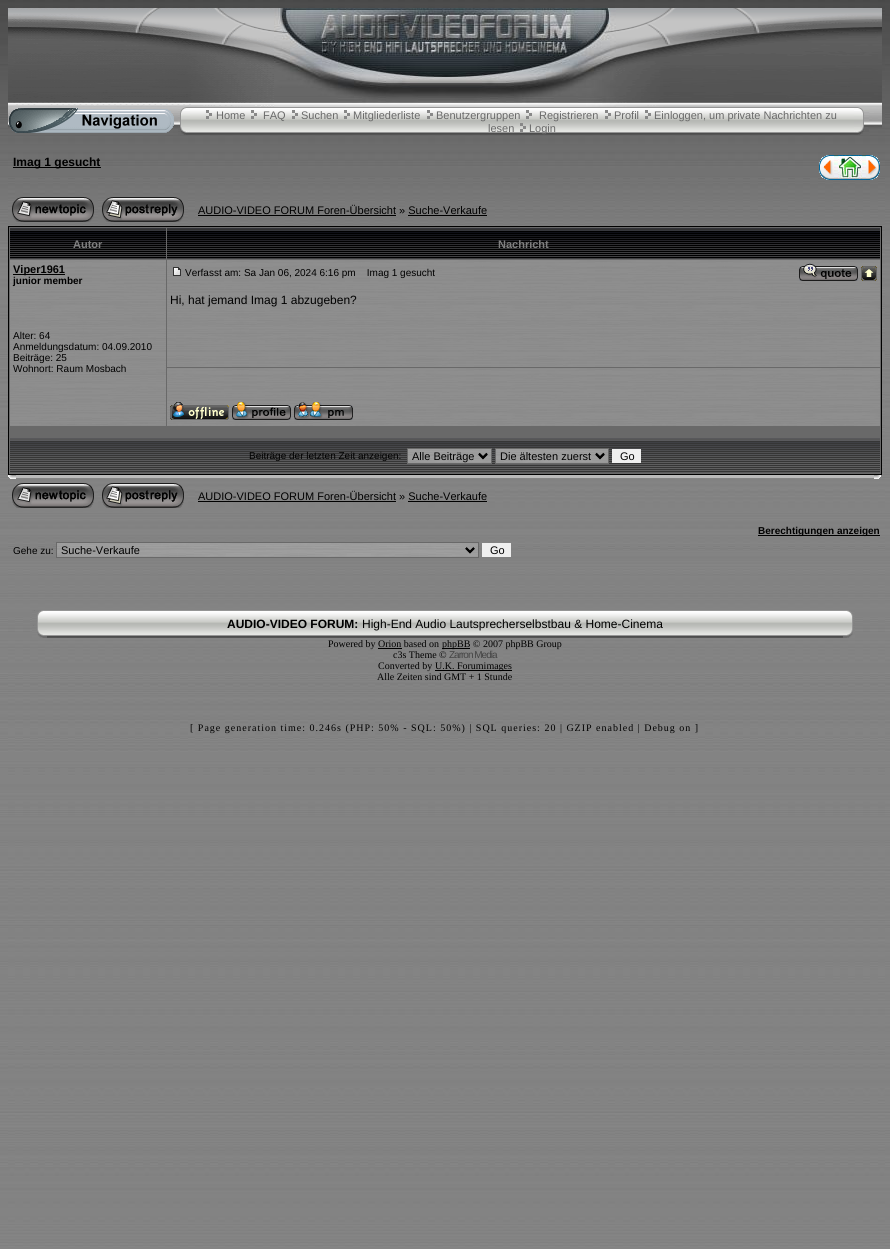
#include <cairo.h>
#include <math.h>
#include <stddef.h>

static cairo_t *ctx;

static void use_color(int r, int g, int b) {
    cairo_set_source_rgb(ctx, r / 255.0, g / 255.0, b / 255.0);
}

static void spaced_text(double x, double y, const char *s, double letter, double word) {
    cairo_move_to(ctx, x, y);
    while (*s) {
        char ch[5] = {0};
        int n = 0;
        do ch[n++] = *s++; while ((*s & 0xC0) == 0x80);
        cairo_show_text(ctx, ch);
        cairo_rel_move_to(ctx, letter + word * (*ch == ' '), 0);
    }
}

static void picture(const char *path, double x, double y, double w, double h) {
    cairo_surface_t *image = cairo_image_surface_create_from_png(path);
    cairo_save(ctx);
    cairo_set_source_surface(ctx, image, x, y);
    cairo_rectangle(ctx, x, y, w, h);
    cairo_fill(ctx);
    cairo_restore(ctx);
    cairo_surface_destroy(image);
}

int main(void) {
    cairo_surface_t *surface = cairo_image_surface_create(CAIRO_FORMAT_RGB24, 890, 1249);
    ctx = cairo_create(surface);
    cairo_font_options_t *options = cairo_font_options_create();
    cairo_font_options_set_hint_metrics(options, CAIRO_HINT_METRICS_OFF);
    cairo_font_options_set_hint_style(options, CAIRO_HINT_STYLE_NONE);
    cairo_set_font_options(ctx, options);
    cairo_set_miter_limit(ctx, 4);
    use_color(255, 255, 255);
    cairo_paint(ctx);
    picture("img1.png", 0, 0, 890, 1249);
    picture("img2.png", 8, 8, 4, 99);
    picture("img3.png", 12, 8, 262, 99);
    picture("img4.png", 274, 8, 342, 99);
    picture("img5.png", 616, 8, 262, 99);
    picture("img6.png", 878, 8, 4, 99);
    picture("img7.png", 8, 107, 874, 21);
    picture("img8.png", 9, 108, 165, 25);
    picture("img9.png", 178, 107, 12, 28);
    picture("img10.png", 190, 107, 664, 28);
    picture("img11.png", 206, 110, 6, 9);
    cairo_select_font_face(ctx, "Liberation Sans", CAIRO_FONT_SLANT_NORMAL, CAIRO_FONT_WEIGHT_NORMAL);
    cairo_set_font_size(ctx, 11);
    use_color(105, 105, 105);
    cairo_move_to(ctx, 216, 119);
    cairo_show_text(ctx, "Home");
    picture("img11.png", 251, 110, 6, 9);
    cairo_move_to(ctx, 263, 119);
    cairo_show_text(ctx, "FAQ");
    picture("img11.png", 292, 110, 6, 9);
    cairo_move_to(ctx, 301, 119);
    cairo_show_text(ctx, "Suchen");
    picture("img11.png", 344, 110, 6, 9);
    cairo_move_to(ctx, 353, 119);
    cairo_show_text(ctx, "Mitgliederliste");
    picture("img11.png", 427, 110, 6, 9);
    cairo_move_to(ctx, 436, 119);
    cairo_show_text(ctx, "Benutzergruppen");
    picture("img11.png", 526, 110, 6, 9);
    cairo_move_to(ctx, 539, 119);
    cairo_show_text(ctx, "Registrieren");
    picture("img11.png", 605, 110, 6, 9);
    cairo_move_to(ctx, 614, 119);
    cairo_show_text(ctx, "Profil");
    picture("img11.png", 645, 110, 6, 9);
    cairo_move_to(ctx, 654, 119);
    cairo_show_text(ctx, "Einloggen, um private Nachrichten zu");
    cairo_move_to(ctx, 488, 132);
    cairo_show_text(ctx, "lesen");
    picture("img12.png", 520, 123, 6, 9);
    cairo_move_to(ctx, 529, 132);
    cairo_show_text(ctx, "Login");
    picture("img13.png", 854, 107, 15, 28);
    use_color(0, 0, 0);
    cairo_rectangle(ctx, 13, 167, 88, 1);
    cairo_fill(ctx);
    cairo_select_font_face(ctx, "Liberation Sans", CAIRO_FONT_SLANT_NORMAL, CAIRO_FONT_WEIGHT_BOLD);
    cairo_set_font_size(ctx, 12);
    cairo_move_to(ctx, 13, 166);
    cairo_show_text(ctx, "Imag 1 gesucht");
    picture("img14.png", 819, 155, 15, 25);
    picture("img15.png", 834, 155, 4, 25);
    picture("img16.png", 838, 155, 24, 25);
    picture("img15.png", 862, 155, 4, 25);
    picture("img17.png", 866, 155, 14, 25);
    picture("img18.png", 12, 197, 82, 25);
    picture("img19.png", 102, 197, 82, 25);
    cairo_select_font_face(ctx, "Liberation Sans", CAIRO_FONT_SLANT_NORMAL, CAIRO_FONT_WEIGHT_NORMAL);
    cairo_set_font_size(ctx, 11);
    cairo_move_to(ctx, 198, 214);
    cairo_show_text(ctx, "AUDIO-VIDEO FORUM Foren-Übersicht » Suche-Verkaufe");
    cairo_rectangle(ctx, 198, 215, 198, 1);
    cairo_fill(ctx);
    cairo_rectangle(ctx, 408, 215, 79, 1);
    cairo_fill(ctx);
    use_color(105, 105, 105);
    cairo_rectangle(ctx, 8.5, 226.5, 873, 248);
    cairo_fill_preserve(ctx);
    use_color(0, 0, 0);
    cairo_set_line_width(ctx, 1);
    cairo_stroke(ctx);
    picture("img20.png", 10, 228, 156, 31);
    cairo_select_font_face(ctx, "Liberation Sans", CAIRO_FONT_SLANT_NORMAL, CAIRO_FONT_WEIGHT_BOLD);
    use_color(128, 128, 128);
    cairo_move_to(ctx, 73, 248);
    cairo_show_text(ctx, "Autor");
    picture("img21.png", 167, 228, 713, 31);
    cairo_move_to(ctx, 498, 248);
    cairo_show_text(ctx, "Nachricht");
    picture("img22.png", 10, 260, 156, 166);
    use_color(0, 0, 0);
    cairo_rectangle(ctx, 13, 274, 52, 1);
    cairo_fill(ctx);
    cairo_move_to(ctx, 13, 273);
    cairo_show_text(ctx, "Viper1961");
    cairo_set_font_size(ctx, 10);
    cairo_move_to(ctx, 13, 284);
    cairo_show_text(ctx, "junior member");
    cairo_select_font_face(ctx, "Liberation Sans", CAIRO_FONT_SLANT_NORMAL, CAIRO_FONT_WEIGHT_NORMAL);
    cairo_move_to(ctx, 13, 339);
    cairo_show_text(ctx, "Alter: 64");
    cairo_move_to(ctx, 13, 350);
    cairo_show_text(ctx, "Anmeldungsdatum: 04.09.2010");
    cairo_move_to(ctx, 13, 361);
    cairo_show_text(ctx, "Beiträge: 25");
    cairo_move_to(ctx, 13, 372);
    cairo_show_text(ctx, "Wohnort: Raum Mosbach");
    picture("img23.png", 167, 260, 713, 107);
    picture("img24.png", 173, 267, 8, 9);
    cairo_move_to(ctx, 185, 276);
    cairo_show_text(ctx, "Verfasst am: Sa Jan 06, 2024 6:16 pm    Imag 1 gesucht");
    picture("img25.png", 799, 263, 59, 18);
    picture("img26.png", 861, 266, 16, 15);
    cairo_set_font_size(ctx, 12);
    cairo_move_to(ctx, 170, 304);
    cairo_show_text(ctx, "Hi, hat jemand Imag 1 abzugeben?");
    picture("img27.png", 167, 368, 713, 58);
    picture("img28.png", 170, 402, 59, 18);
    picture("img29.png", 232, 402, 59, 18);
    picture("img30.png", 294, 402, 59, 18);
    picture("img31.png", 10, 438, 870, 35);
    cairo_set_font_size(ctx, 10);
    cairo_move_to(ctx, 249, 459);
    cairo_show_text(ctx, "Beiträge der letzten Zeit anzeigen:");
    picture("img32.png", 408, 449, 83, 14);
    cairo_rectangle(ctx, 407.5, 448.5, 84, 15);
    use_color(105, 105, 105);
    cairo_stroke(ctx);
    cairo_new_path(ctx);
    cairo_move_to(ctx, 479, 453.5);
    cairo_line_to(ctx, 483, 457.5);
    cairo_line_to(ctx, 487, 453.5);
    use_color(0, 0, 0);
    cairo_set_line_width(ctx, 2);
    cairo_stroke(ctx);
    cairo_set_font_size(ctx, 11);
    cairo_move_to(ctx, 412, 460);
    cairo_show_text(ctx, "Alle Beiträge");
    picture("img33.png", 496, 449, 112, 14);
    cairo_rectangle(ctx, 495.5, 448.5, 113, 15);
    use_color(105, 105, 105);
    cairo_set_line_width(ctx, 1);
    cairo_stroke(ctx);
    cairo_new_path(ctx);
    cairo_move_to(ctx, 596, 453.5);
    cairo_line_to(ctx, 600, 457.5);
    cairo_line_to(ctx, 604, 453.5);
    use_color(0, 0, 0);
    cairo_set_line_width(ctx, 2);
    cairo_stroke(ctx);
    cairo_move_to(ctx, 500, 460);
    cairo_show_text(ctx, "Die ältesten zuerst");
    use_color(239, 239, 239);
    cairo_rectangle(ctx, 612, 449, 29, 14);
    cairo_fill(ctx);
    use_color(0, 0, 0);
    cairo_move_to(ctx, 620, 460);
    cairo_show_text(ctx, "Go");
    picture("img34.png", 8, 475, 8, 4);
    use_color(186, 186, 186);
    cairo_rectangle(ctx, 16, 475, 858, 3);
    cairo_fill(ctx);
    picture("img35.png", 874, 475, 7, 4);
    picture("img36.png", 12, 483, 82, 25);
    picture("img37.png", 102, 483, 82, 25);
    use_color(0, 0, 0);
    cairo_move_to(ctx, 198, 500);
    cairo_show_text(ctx, "AUDIO-VIDEO FORUM Foren-Übersicht » Suche-Verkaufe");
    cairo_rectangle(ctx, 198, 501, 198, 1);
    cairo_fill(ctx);
    cairo_rectangle(ctx, 408, 501, 79, 1);
    cairo_fill(ctx);
    cairo_rectangle(ctx, 758, 535, 122, 1);
    cairo_fill(ctx);
    cairo_select_font_face(ctx, "Liberation Sans", CAIRO_FONT_SLANT_NORMAL, CAIRO_FONT_WEIGHT_BOLD);
    cairo_set_font_size(ctx, 10);
    cairo_move_to(ctx, 758, 534);
    cairo_show_text(ctx, "Berechtigungen anzeigen");
    cairo_select_font_face(ctx, "Liberation Sans", CAIRO_FONT_SLANT_NORMAL, CAIRO_FONT_WEIGHT_NORMAL);
    cairo_move_to(ctx, 13, 554);
    cairo_show_text(ctx, "Gehe zu:");
    picture("img38.png", 57, 543, 421, 14);
    cairo_rectangle(ctx, 56.5, 542.5, 422, 15);
    use_color(105, 105, 105);
    cairo_set_line_width(ctx, 1);
    cairo_stroke(ctx);
    cairo_new_path(ctx);
    cairo_move_to(ctx, 466, 548);
    cairo_line_to(ctx, 470, 552);
    cairo_line_to(ctx, 474, 548);
    use_color(0, 0, 0);
    cairo_set_line_width(ctx, 2);
    cairo_stroke(ctx);
    cairo_set_font_size(ctx, 11);
    cairo_move_to(ctx, 61, 554);
    cairo_show_text(ctx, "Suche-Verkaufe");
    use_color(239, 239, 239);
    cairo_rectangle(ctx, 482, 543, 29, 14);
    cairo_fill(ctx);
    use_color(0, 0, 0);
    cairo_move_to(ctx, 490, 554);
    cairo_show_text(ctx, "Go");
    picture("img39.png", 32, 610, 15, 28);
    picture("img40.png", 47, 610, 796, 28);
    cairo_select_font_face(ctx, "Liberation Sans", CAIRO_FONT_SLANT_NORMAL, CAIRO_FONT_WEIGHT_BOLD);
    cairo_set_font_size(ctx, 12);
    cairo_move_to(ctx, 227, 628);
    cairo_show_text(ctx, "AUDIO-VIDEO FORUM:");
    cairo_select_font_face(ctx, "Liberation Sans", CAIRO_FONT_SLANT_NORMAL, CAIRO_FONT_WEIGHT_NORMAL);
    cairo_move_to(ctx, 362, 628);
    cairo_show_text(ctx, "High-End Audio Lautsprecherselbstbau & Home-Cinema");
    picture("img41.png", 843, 610, 12, 28);
    cairo_select_font_face(ctx, "Liberation Serif", CAIRO_FONT_SLANT_NORMAL, CAIRO_FONT_WEIGHT_NORMAL);
    cairo_set_font_size(ctx, 10);
    cairo_move_to(ctx, 328, 647);
    cairo_show_text(ctx, "Powered by Orion based on");
    cairo_rectangle(ctx, 442, 648, 28, 1);
    cairo_fill(ctx);
    cairo_move_to(ctx, 442, 647);
    cairo_show_text(ctx, "phpBB © 2007 phpBB Group");
    cairo_rectangle(ctx, 378, 648, 24, 1);
    cairo_fill(ctx);
    cairo_move_to(ctx, 393, 658);
    cairo_show_text(ctx, "c3s Theme ©");
    cairo_select_font_face(ctx, "Liberation Sans", CAIRO_FONT_SLANT_NORMAL, CAIRO_FONT_WEIGHT_NORMAL);
    use_color(68, 68, 68);
    spaced_text(449, 658, "Zarron Media", -1, 0);
    cairo_select_font_face(ctx, "Liberation Serif", CAIRO_FONT_SLANT_NORMAL, CAIRO_FONT_WEIGHT_NORMAL);
    use_color(0, 0, 0);
    cairo_move_to(ctx, 378, 669);
    cairo_show_text(ctx, "Converted by");
    cairo_rectangle(ctx, 435, 670, 77, 1);
    cairo_fill(ctx);
    cairo_move_to(ctx, 435, 669);
    cairo_show_text(ctx, "U.K. Forumimages");
    cairo_move_to(ctx, 377, 680);
    cairo_show_text(ctx, "Alle Zeiten sind GMT + 1 Stunde");
    spaced_text(190, 731, "[ Page generation time: 0.246s (PHP: 50% - SQL: 50%) | SQL queries: 20 | GZIP enabled | Debug on ]", 1, 0);
    cairo_surface_write_to_png(surface, "result.png");
    cairo_font_options_destroy(options);
    cairo_destroy(ctx);
    cairo_surface_destroy(surface);
    return 0;
}
